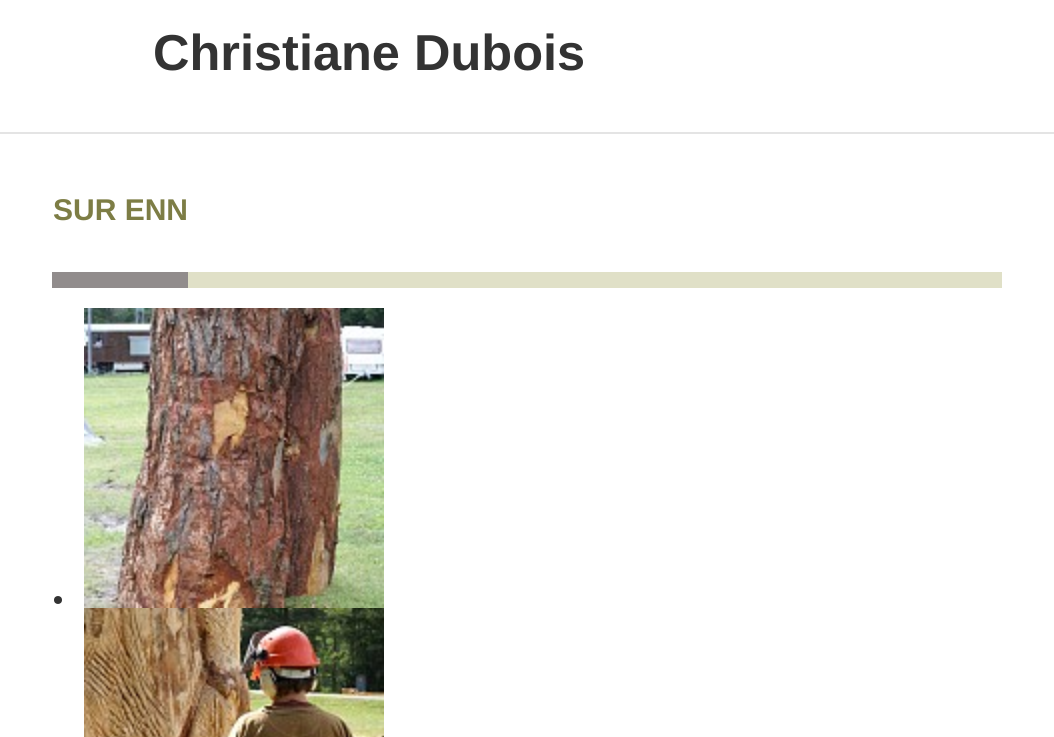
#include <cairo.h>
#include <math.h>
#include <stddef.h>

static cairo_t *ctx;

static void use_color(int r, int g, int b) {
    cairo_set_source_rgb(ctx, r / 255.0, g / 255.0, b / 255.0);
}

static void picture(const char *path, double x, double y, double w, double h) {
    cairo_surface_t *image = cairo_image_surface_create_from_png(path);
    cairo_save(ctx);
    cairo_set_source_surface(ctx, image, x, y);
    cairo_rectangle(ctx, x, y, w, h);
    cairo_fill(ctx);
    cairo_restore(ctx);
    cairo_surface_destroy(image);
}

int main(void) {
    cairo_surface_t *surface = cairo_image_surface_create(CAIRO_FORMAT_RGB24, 1054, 737);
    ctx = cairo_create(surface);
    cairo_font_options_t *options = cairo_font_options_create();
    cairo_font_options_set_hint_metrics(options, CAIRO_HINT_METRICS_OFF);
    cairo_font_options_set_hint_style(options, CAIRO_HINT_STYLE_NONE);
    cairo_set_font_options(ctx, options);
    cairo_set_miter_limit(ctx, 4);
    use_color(255, 255, 255);
    cairo_paint(ctx);
    use_color(228, 228, 228);
    cairo_rectangle(ctx, 0, 132, 1054, 2);
    cairo_fill(ctx);
    cairo_select_font_face(ctx, "Liberation Sans", CAIRO_FONT_SLANT_NORMAL, CAIRO_FONT_WEIGHT_BOLD);
    cairo_set_font_size(ctx, 50.5);
    use_color(51, 51, 51);
    cairo_move_to(ctx, 153, 70);
    cairo_show_text(ctx, "Christiane Dubois");
    use_color(224, 224, 199);
    cairo_rectangle(ctx, 188, 272, 814, 16);
    cairo_fill(ctx);
    use_color(145, 140, 140);
    cairo_rectangle(ctx, 52, 272, 136, 16);
    cairo_fill(ctx);
    cairo_set_font_size(ctx, 30);
    use_color(125, 125, 69);
    cairo_move_to(ctx, 53, 220);
    cairo_show_text(ctx, "SUR ENN");
    use_color(51, 51, 51);
    cairo_new_path(ctx);
    cairo_arc(ctx, 58, 600, 4, 0, 2 * M_PI);
    cairo_fill(ctx);
    picture("img1.png", 84, 308, 300, 300);
    picture("img2.png", 84, 608, 300, 129);
    cairo_surface_write_to_png(surface, "result.png");
    cairo_font_options_destroy(options);
    cairo_destroy(ctx);
    cairo_surface_destroy(surface);
    return 0;
}
